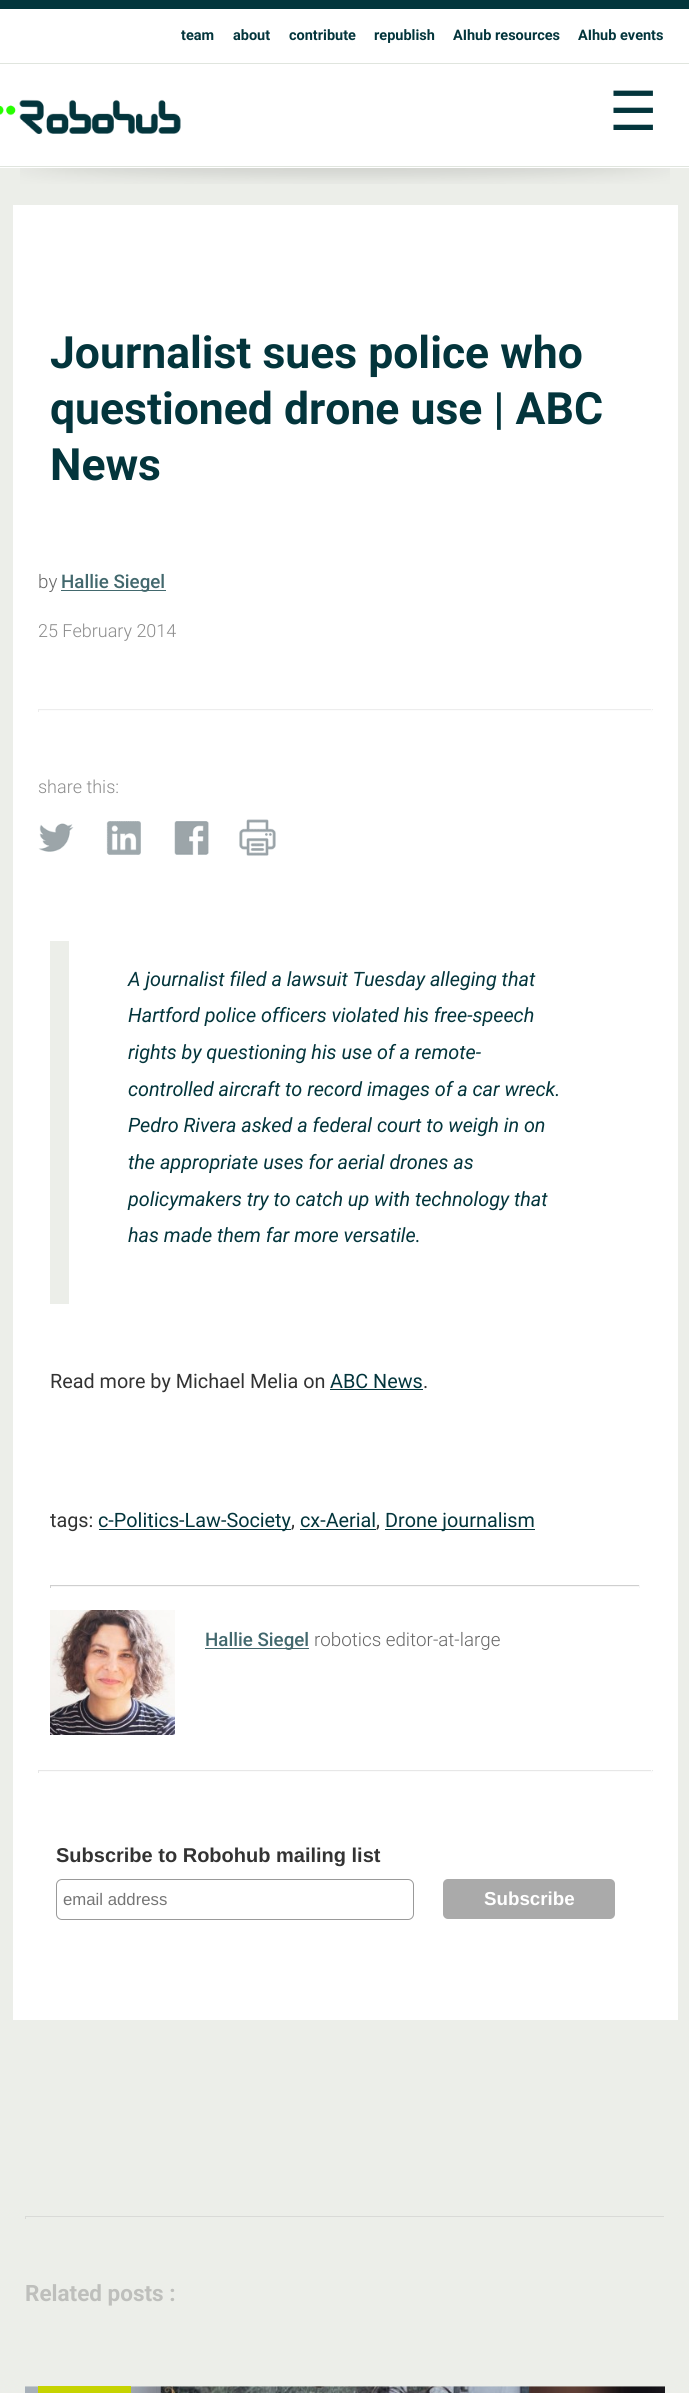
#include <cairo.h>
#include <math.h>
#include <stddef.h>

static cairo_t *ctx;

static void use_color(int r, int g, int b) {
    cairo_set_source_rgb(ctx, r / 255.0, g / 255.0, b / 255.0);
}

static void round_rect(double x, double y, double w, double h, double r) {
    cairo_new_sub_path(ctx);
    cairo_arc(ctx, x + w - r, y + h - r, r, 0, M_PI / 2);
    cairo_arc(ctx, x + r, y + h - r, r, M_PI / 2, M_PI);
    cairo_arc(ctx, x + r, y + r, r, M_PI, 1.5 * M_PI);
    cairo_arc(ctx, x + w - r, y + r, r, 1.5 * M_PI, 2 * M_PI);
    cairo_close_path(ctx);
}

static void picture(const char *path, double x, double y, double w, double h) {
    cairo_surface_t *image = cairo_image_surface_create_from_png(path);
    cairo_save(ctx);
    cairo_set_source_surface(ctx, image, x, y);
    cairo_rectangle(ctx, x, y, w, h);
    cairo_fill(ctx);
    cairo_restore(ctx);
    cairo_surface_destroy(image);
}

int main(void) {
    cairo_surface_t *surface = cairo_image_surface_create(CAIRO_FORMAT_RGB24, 689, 2393);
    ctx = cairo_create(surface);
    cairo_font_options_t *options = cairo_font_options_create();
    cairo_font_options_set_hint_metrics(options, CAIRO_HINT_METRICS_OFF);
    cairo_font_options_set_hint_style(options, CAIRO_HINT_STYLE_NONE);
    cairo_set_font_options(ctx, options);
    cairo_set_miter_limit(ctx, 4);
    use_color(236, 238, 233);
    cairo_paint(ctx);
    use_color(255, 255, 255);
    cairo_rectangle(ctx, 0, 9, 689, 159);
    cairo_fill(ctx);
    use_color(3, 53, 60);
    cairo_rectangle(ctx, 0, 0, 689, 9);
    cairo_fill(ctx);
    use_color(224, 229, 222);
    cairo_rectangle(ctx, 0, 166, 689, 1);
    cairo_fill(ctx);
    cairo_rectangle(ctx, 0, 63, 689, 1);
    cairo_fill(ctx);
    cairo_select_font_face(ctx, "Roboto", CAIRO_FONT_SLANT_NORMAL, CAIRO_FONT_WEIGHT_BOLD);
    cairo_set_font_size(ctx, 14.5);
    use_color(3, 53, 60);
    cairo_move_to(ctx, 181, 40);
    cairo_show_text(ctx, "team");
    cairo_move_to(ctx, 233, 40);
    cairo_show_text(ctx, "about");
    cairo_move_to(ctx, 289, 40);
    cairo_show_text(ctx, "contribute");
    cairo_move_to(ctx, 374, 40);
    cairo_show_text(ctx, "republish");
    cairo_move_to(ctx, 453, 40);
    cairo_show_text(ctx, "AIhub resources");
    cairo_move_to(ctx, 578, 40);
    cairo_show_text(ctx, "AIhub events");
    picture("img1.png", 0, 99, 181, 35);
    cairo_select_font_face(ctx, "DejaVu Sans", CAIRO_FONT_SLANT_NORMAL, CAIRO_FONT_WEIGHT_NORMAL);
    cairo_set_font_size(ctx, 54);
    cairo_move_to(ctx, 609, 130);
    cairo_show_text(ctx, "☰");
    picture("img2.png", 20, 168, 650, 16);
    use_color(255, 255, 255);
    cairo_rectangle(ctx, 13, 205, 665, 1815);
    cairo_fill(ctx);
    cairo_select_font_face(ctx, "Roboto", CAIRO_FONT_SLANT_NORMAL, CAIRO_FONT_WEIGHT_BOLD);
    cairo_set_font_size(ctx, 44.5);
    use_color(3, 53, 60);
    cairo_move_to(ctx, 50, 368);
    cairo_show_text(ctx, "Journalist sues police who");
    cairo_move_to(ctx, 50, 424);
    cairo_show_text(ctx, "questioned drone use | ABC");
    cairo_move_to(ctx, 50, 480);
    cairo_show_text(ctx, "News");
    cairo_select_font_face(ctx, "Roboto Light", CAIRO_FONT_SLANT_NORMAL, CAIRO_FONT_WEIGHT_NORMAL);
    cairo_set_font_size(ctx, 18.75);
    use_color(102, 102, 102);
    cairo_move_to(ctx, 38, 588);
    cairo_show_text(ctx, "by");
    use_color(66, 104, 109);
    cairo_rectangle(ctx, 61, 590, 105, 1);
    cairo_fill(ctx);
    cairo_select_font_face(ctx, "Roboto Medium", CAIRO_FONT_SLANT_NORMAL, CAIRO_FONT_WEIGHT_NORMAL);
    cairo_move_to(ctx, 61, 588);
    cairo_show_text(ctx, "Hallie Siegel");
    cairo_select_font_face(ctx, "Roboto Light", CAIRO_FONT_SLANT_NORMAL, CAIRO_FONT_WEIGHT_NORMAL);
    cairo_set_font_size(ctx, 18);
    use_color(140, 140, 140);
    cairo_move_to(ctx, 38, 637);
    cairo_show_text(ctx, "25 February 2014");
    use_color(237, 237, 237);
    cairo_rectangle(ctx, 38, 709, 615, 1);
    cairo_fill(ctx);
    use_color(252, 252, 252);
    cairo_rectangle(ctx, 651, 709, 1, 3);
    cairo_fill(ctx);
    cairo_rectangle(ctx, 38, 710, 615, 1);
    cairo_fill(ctx);
    use_color(237, 237, 237);
    cairo_rectangle(ctx, 38, 709, 1, 3);
    cairo_fill(ctx);
    use_color(140, 140, 140);
    cairo_move_to(ctx, 38, 793);
    cairo_show_text(ctx, "share this:");
    picture("img3.png", 38, 823, 36, 29);
    picture("img4.png", 106, 821, 35, 34);
    picture("img5.png", 174, 821, 35, 34);
    picture("img6.png", 239, 819, 37, 37);
    use_color(236, 238, 233);
    cairo_rectangle(ctx, 50, 941, 19, 363);
    cairo_fill(ctx);
    cairo_select_font_face(ctx, "Roboto", CAIRO_FONT_SLANT_ITALIC, CAIRO_FONT_WEIGHT_NORMAL);
    cairo_set_font_size(ctx, 19.8);
    use_color(3, 53, 60);
    cairo_move_to(ctx, 128, 986);
    cairo_show_text(ctx, "A journalist filed a lawsuit Tuesday alleging that");
    cairo_move_to(ctx, 128, 1022);
    cairo_show_text(ctx, "Hartford police officers violated his free-speech");
    cairo_move_to(ctx, 128, 1059);
    cairo_show_text(ctx, "rights by questioning his use of a remote-");
    cairo_move_to(ctx, 128, 1096);
    cairo_show_text(ctx, "controlled aircraft to record images of a car wreck.");
    cairo_move_to(ctx, 128, 1132);
    cairo_show_text(ctx, "Pedro Rivera asked a federal court to weigh in on");
    cairo_move_to(ctx, 128, 1169);
    cairo_show_text(ctx, "the appropriate uses for aerial drones as");
    cairo_move_to(ctx, 128, 1206);
    cairo_show_text(ctx, "policymakers try to catch up with technology that");
    cairo_move_to(ctx, 128, 1242);
    cairo_show_text(ctx, "has made them far more versatile.");
    cairo_select_font_face(ctx, "Roboto", CAIRO_FONT_SLANT_NORMAL, CAIRO_FONT_WEIGHT_NORMAL);
    use_color(51, 51, 51);
    cairo_move_to(ctx, 50, 1388);
    cairo_show_text(ctx, "Read more by Michael Melia on");
    use_color(3, 53, 60);
    cairo_move_to(ctx, 330, 1388);
    cairo_show_text(ctx, "ABC News");
    cairo_rectangle(ctx, 330, 1389, 93, 1);
    cairo_fill(ctx);
    use_color(51, 51, 51);
    cairo_move_to(ctx, 423, 1388);
    cairo_show_text(ctx, ".");
    cairo_move_to(ctx, 50, 1527);
    cairo_show_text(ctx, "tags:");
    use_color(3, 53, 60);
    cairo_rectangle(ctx, 99, 1529, 192, 1);
    cairo_fill(ctx);
    cairo_move_to(ctx, 98, 1527);
    cairo_show_text(ctx, "c-Politics-Law-Society");
    use_color(51, 51, 51);
    cairo_move_to(ctx, 291, 1527);
    cairo_show_text(ctx, ",");
    use_color(3, 53, 60);
    cairo_move_to(ctx, 300, 1527);
    cairo_show_text(ctx, "cx-Aerial");
    cairo_rectangle(ctx, 300, 1529, 76, 1);
    cairo_fill(ctx);
    use_color(51, 51, 51);
    cairo_move_to(ctx, 376, 1527);
    cairo_show_text(ctx, ",");
    use_color(3, 53, 60);
    cairo_rectangle(ctx, 385, 1529, 150, 1);
    cairo_fill(ctx);
    cairo_move_to(ctx, 385, 1527);
    cairo_show_text(ctx, "Drone journalism");
    use_color(207, 207, 207);
    cairo_rectangle(ctx, 50, 1585, 590, 1);
    cairo_fill(ctx);
    use_color(247, 247, 247);
    cairo_rectangle(ctx, 639, 1585, 1, 3);
    cairo_fill(ctx);
    cairo_rectangle(ctx, 50, 1586, 590, 1);
    cairo_fill(ctx);
    use_color(207, 207, 207);
    cairo_rectangle(ctx, 50, 1585, 1, 3);
    cairo_fill(ctx);
    picture("img7.png", 50, 1610, 125, 125);
    use_color(66, 104, 109);
    cairo_rectangle(ctx, 205, 1648, 104, 1);
    cairo_fill(ctx);
    cairo_select_font_face(ctx, "Roboto Medium", CAIRO_FONT_SLANT_NORMAL, CAIRO_FONT_WEIGHT_NORMAL);
    cairo_set_font_size(ctx, 18.75);
    cairo_move_to(ctx, 205, 1646);
    cairo_show_text(ctx, "Hallie Siegel");
    cairo_select_font_face(ctx, "Roboto Light", CAIRO_FONT_SLANT_NORMAL, CAIRO_FONT_WEIGHT_NORMAL);
    use_color(102, 102, 102);
    cairo_move_to(ctx, 314, 1646);
    cairo_show_text(ctx, "robotics editor-at-large");
    use_color(231, 231, 231);
    cairo_rectangle(ctx, 38, 1770, 615, 1);
    cairo_fill(ctx);
    use_color(251, 251, 251);
    cairo_rectangle(ctx, 651, 1770, 1, 3);
    cairo_fill(ctx);
    cairo_rectangle(ctx, 38, 1771, 615, 1);
    cairo_fill(ctx);
    use_color(231, 231, 231);
    cairo_rectangle(ctx, 38, 1770, 1, 3);
    cairo_fill(ctx);
    cairo_select_font_face(ctx, "Liberation Sans", CAIRO_FONT_SLANT_NORMAL, CAIRO_FONT_WEIGHT_BOLD);
    cairo_set_font_size(ctx, 20);
    use_color(51, 51, 51);
    cairo_move_to(ctx, 56, 1862);
    cairo_show_text(ctx, "Subscribe to Robohub mailing list");
    round_rect(56.5, 1879.5, 357, 40, 5.5);
    use_color(153, 153, 153);
    cairo_set_line_width(ctx, 1);
    cairo_stroke(ctx);
    cairo_select_font_face(ctx, "Liberation Sans", CAIRO_FONT_SLANT_NORMAL, CAIRO_FONT_WEIGHT_NORMAL);
    cairo_set_font_size(ctx, 16.75);
    use_color(117, 117, 117);
    cairo_move_to(ctx, 63, 1905);
    cairo_show_text(ctx, "email address");
    use_color(170, 170, 170);
    round_rect(443, 1879, 172, 40, 5);
    cairo_fill(ctx);
    cairo_select_font_face(ctx, "Liberation Sans", CAIRO_FONT_SLANT_NORMAL, CAIRO_FONT_WEIGHT_BOLD);
    cairo_set_font_size(ctx, 18.75);
    use_color(255, 255, 255);
    cairo_move_to(ctx, 484, 1905);
    cairo_show_text(ctx, "Subscribe");
    use_color(217, 218, 215);
    cairo_rectangle(ctx, 25, 2216, 640, 1);
    cairo_fill(ctx);
    use_color(237, 238, 234);
    cairo_rectangle(ctx, 664, 2216, 1, 3);
    cairo_fill(ctx);
    use_color(217, 218, 215);
    cairo_rectangle(ctx, 25, 2216, 1, 3);
    cairo_fill(ctx);
    cairo_select_font_face(ctx, "Roboto", CAIRO_FONT_SLANT_NORMAL, CAIRO_FONT_WEIGHT_BOLD);
    cairo_set_font_size(ctx, 22.5);
    use_color(190, 191, 188);
    cairo_move_to(ctx, 25, 2301);
    cairo_show_text(ctx, "Related posts :");
    picture("img8.png", 25, 2386, 640, 7);
    use_color(198, 211, 0);
    cairo_rectangle(ctx, 38, 2386, 93, 7);
    cairo_fill(ctx);
    cairo_surface_write_to_png(surface, "result.png");
    cairo_font_options_destroy(options);
    cairo_destroy(ctx);
    cairo_surface_destroy(surface);
    return 0;
}
